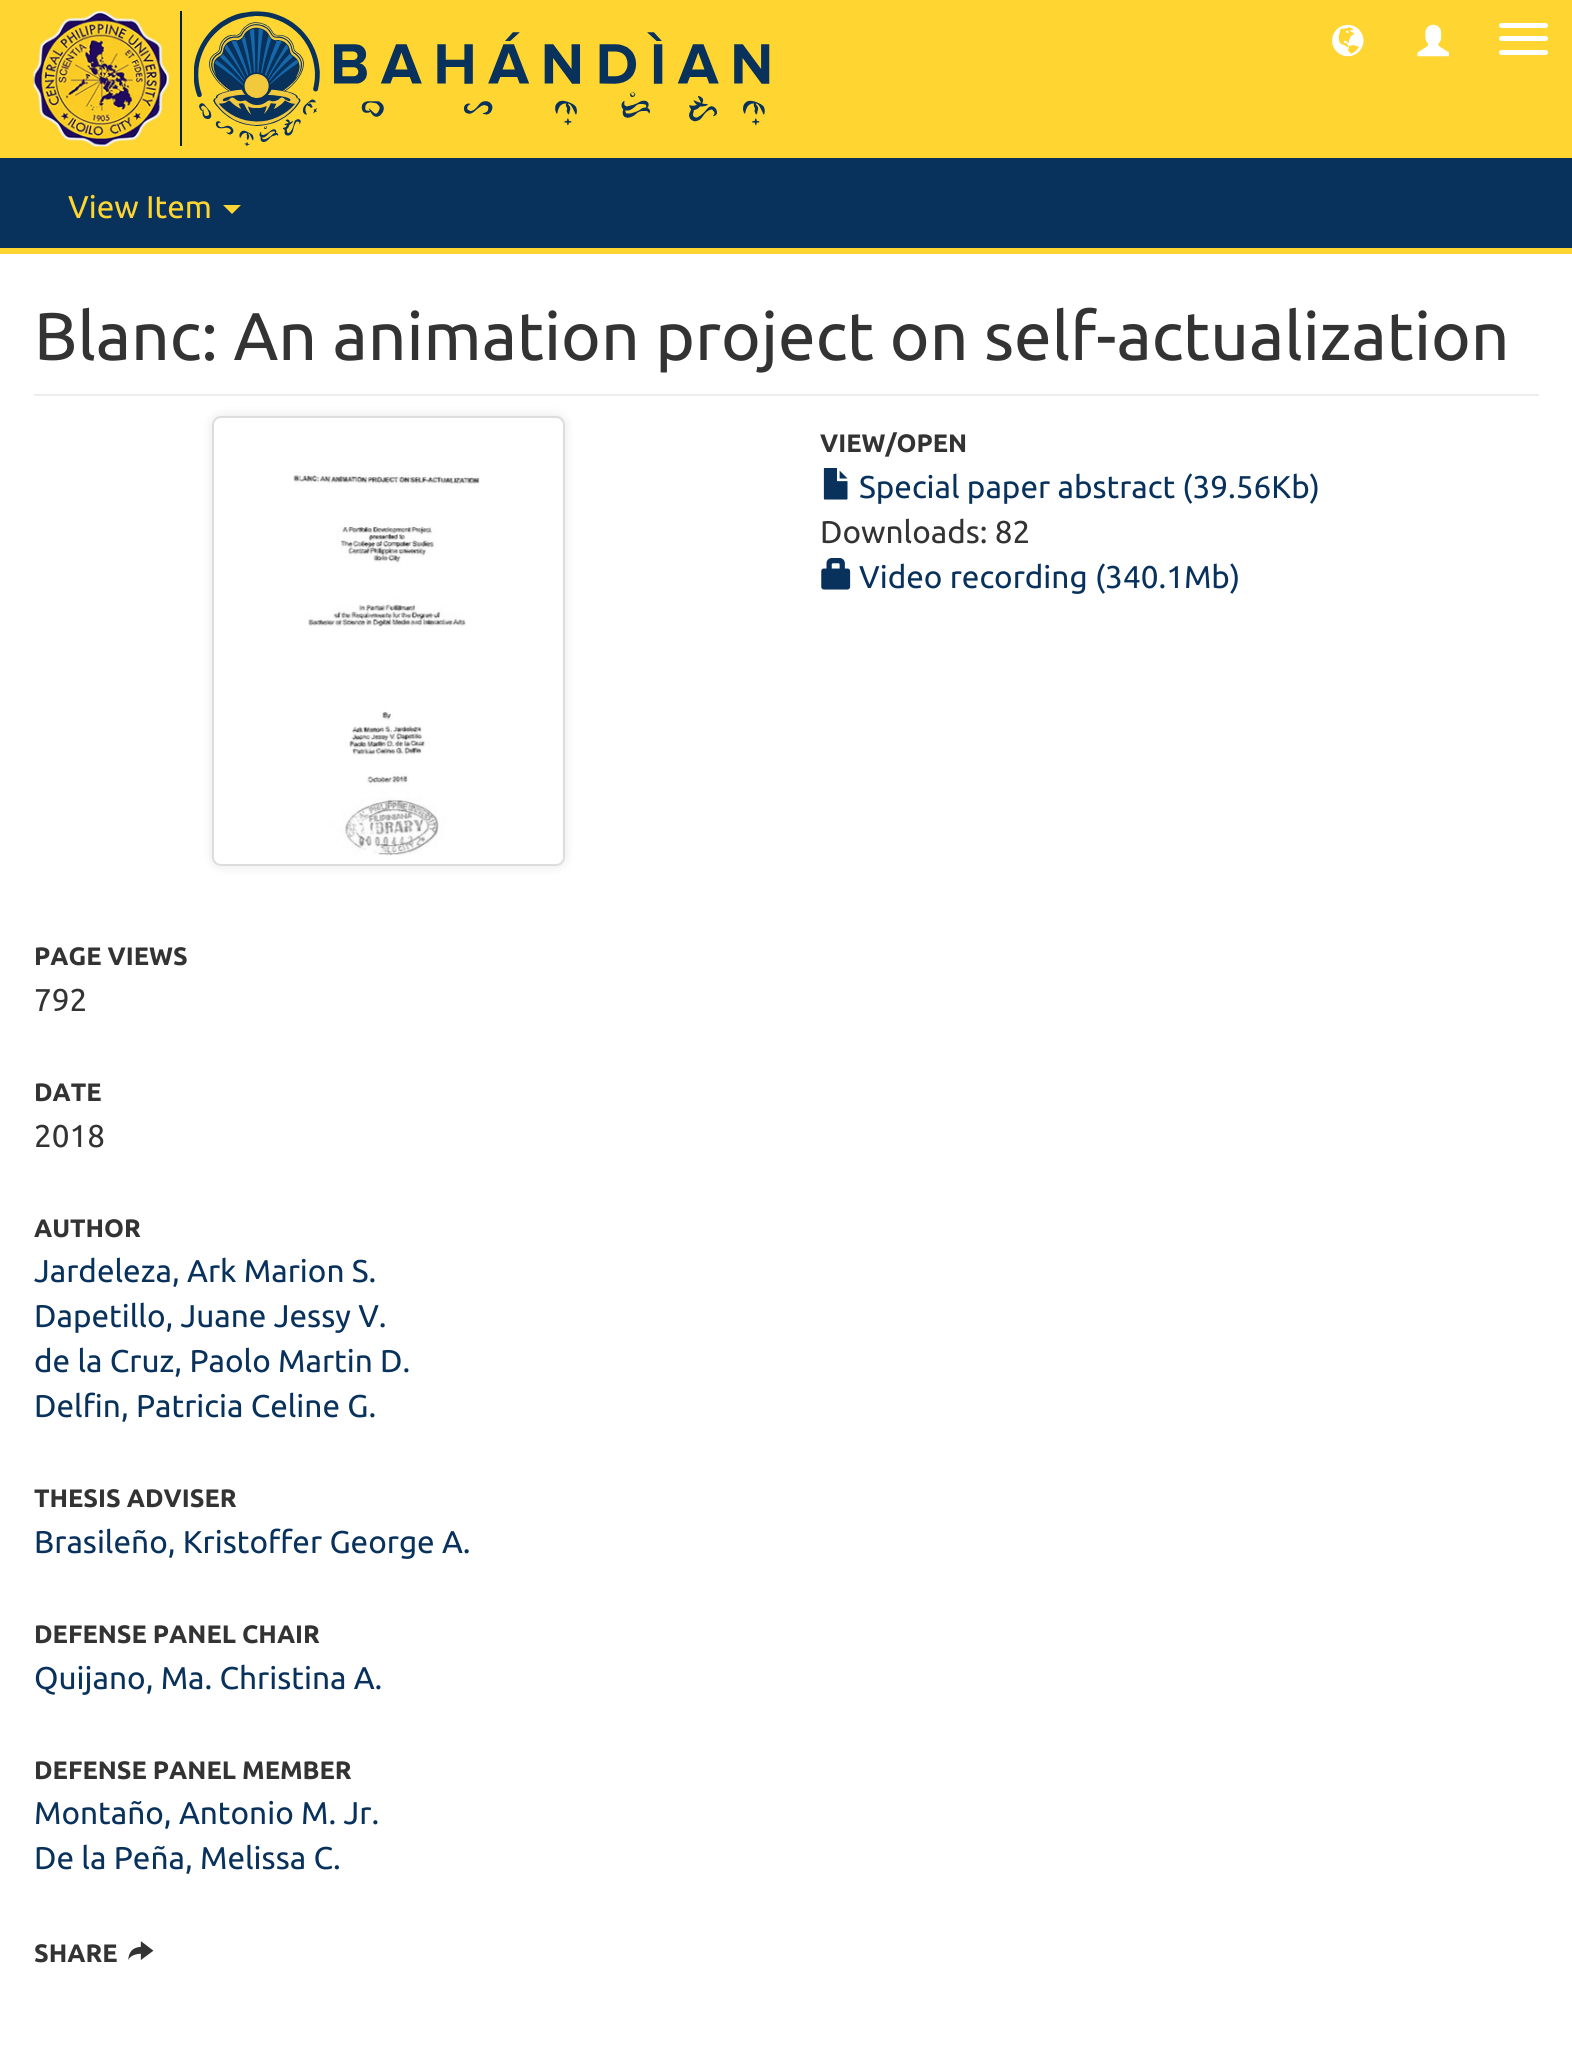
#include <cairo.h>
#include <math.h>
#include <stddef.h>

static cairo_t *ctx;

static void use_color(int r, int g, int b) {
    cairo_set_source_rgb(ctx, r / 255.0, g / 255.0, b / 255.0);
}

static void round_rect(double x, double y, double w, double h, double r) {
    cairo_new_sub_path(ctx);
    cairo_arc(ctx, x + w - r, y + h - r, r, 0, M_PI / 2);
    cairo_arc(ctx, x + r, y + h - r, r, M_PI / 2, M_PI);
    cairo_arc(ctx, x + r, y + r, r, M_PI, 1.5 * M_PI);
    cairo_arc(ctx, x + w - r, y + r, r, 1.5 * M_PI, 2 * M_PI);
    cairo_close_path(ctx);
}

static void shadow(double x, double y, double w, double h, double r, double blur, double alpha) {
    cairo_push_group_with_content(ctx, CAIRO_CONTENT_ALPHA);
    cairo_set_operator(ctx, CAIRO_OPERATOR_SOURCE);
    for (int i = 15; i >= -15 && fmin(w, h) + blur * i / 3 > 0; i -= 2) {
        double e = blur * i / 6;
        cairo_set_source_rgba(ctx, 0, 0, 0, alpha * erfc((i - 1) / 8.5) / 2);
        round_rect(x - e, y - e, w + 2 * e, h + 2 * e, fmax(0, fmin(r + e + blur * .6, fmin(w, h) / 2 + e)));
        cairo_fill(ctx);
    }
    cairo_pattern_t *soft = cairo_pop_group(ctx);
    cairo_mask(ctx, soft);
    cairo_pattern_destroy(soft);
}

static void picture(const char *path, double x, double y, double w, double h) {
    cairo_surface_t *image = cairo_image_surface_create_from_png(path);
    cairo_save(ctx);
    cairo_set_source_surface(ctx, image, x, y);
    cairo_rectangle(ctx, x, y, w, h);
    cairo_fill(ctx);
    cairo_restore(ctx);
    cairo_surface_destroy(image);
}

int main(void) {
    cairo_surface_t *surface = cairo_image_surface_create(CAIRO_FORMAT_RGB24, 1572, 2050);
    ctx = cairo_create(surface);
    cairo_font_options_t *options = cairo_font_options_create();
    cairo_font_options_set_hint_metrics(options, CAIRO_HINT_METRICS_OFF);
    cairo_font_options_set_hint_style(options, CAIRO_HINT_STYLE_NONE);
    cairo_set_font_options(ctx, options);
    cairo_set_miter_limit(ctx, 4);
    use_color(8, 49, 92);
    cairo_paint(ctx);
    use_color(254, 213, 49);
    cairo_rectangle(ctx, 0, 0, 1572, 158);
    cairo_fill(ctx);
    picture("img1.png", 33, 11, 136, 136);
    use_color(0, 33, 71);
    cairo_rectangle(ctx, 180, 11, 2, 135);
    cairo_fill(ctx);
    picture("img2.png", 194, 11, 576, 135);
    picture("img3.png", 1332, 24, 32, 33);
    picture("img4.png", 1417, 24, 32, 33);
    use_color(255, 255, 255);
    round_rect(1499, 23, 49, 5, 2.5);
    cairo_fill(ctx);
    round_rect(1499, 36, 49, 5, 2.5);
    cairo_fill(ctx);
    round_rect(1499, 50, 49, 5, 2.5);
    cairo_fill(ctx);
    use_color(254, 213, 49);
    cairo_rectangle(ctx, 0, 248, 1572, 6);
    cairo_fill(ctx);
    cairo_select_font_face(ctx, "Ubuntu", CAIRO_FONT_SLANT_NORMAL, CAIRO_FONT_WEIGHT_NORMAL);
    cairo_set_font_size(ctx, 31.5);
    cairo_move_to(ctx, 68, 218);
    cairo_show_text(ctx, "View Item");
    cairo_new_path(ctx);
    cairo_move_to(ctx, 223, 205);
    cairo_line_to(ctx, 241, 205);
    cairo_line_to(ctx, 232, 214);
    cairo_close_path(ctx);
    cairo_fill(ctx);
    use_color(255, 255, 255);
    cairo_rectangle(ctx, 0, 254, 1572, 1796);
    cairo_fill(ctx);
    use_color(238, 238, 238);
    cairo_rectangle(ctx, 34, 394, 1505, 2);
    cairo_fill(ctx);
    cairo_set_font_size(ctx, 67.5);
    use_color(51, 51, 51);
    cairo_move_to(ctx, 34, 360);
    cairo_show_text(ctx, "Blanc: An animation project on self-actualization");
    use_color(0, 0, 0);
    shadow(212, 416, 353, 450, 9, 5.5, 0.1);
    use_color(255, 255, 255);
    round_rect(213, 417, 351, 448, 8);
    cairo_fill_preserve(ctx);
    use_color(221, 221, 221);
    cairo_stroke(ctx);
    picture("img5.png", 293, 472, 187, 384);
    cairo_select_font_face(ctx, "Ubuntu", CAIRO_FONT_SLANT_NORMAL, CAIRO_FONT_WEIGHT_BOLD);
    cairo_set_font_size(ctx, 25.25);
    use_color(51, 51, 51);
    cairo_move_to(ctx, 820, 452);
    cairo_show_text(ctx, "VIEW/OPEN");
    picture("img6.png", 823, 468, 25, 32);
    cairo_select_font_face(ctx, "Ubuntu", CAIRO_FONT_SLANT_NORMAL, CAIRO_FONT_WEIGHT_NORMAL);
    cairo_set_font_size(ctx, 31.5);
    use_color(8, 49, 92);
    cairo_move_to(ctx, 859, 498);
    cairo_show_text(ctx, "Special paper abstract (39.56Kb)");
    use_color(51, 51, 51);
    cairo_move_to(ctx, 820, 543);
    cairo_show_text(ctx, "Downloads: 82");
    picture("img7.png", 821, 558, 30, 32);
    use_color(8, 49, 92);
    cairo_move_to(ctx, 859, 588);
    cairo_show_text(ctx, "Video recording (340.1Mb)");
    cairo_select_font_face(ctx, "Ubuntu", CAIRO_FONT_SLANT_NORMAL, CAIRO_FONT_WEIGHT_BOLD);
    cairo_set_font_size(ctx, 25.25);
    use_color(51, 51, 51);
    cairo_move_to(ctx, 34, 965);
    cairo_show_text(ctx, "PAGE VIEWS");
    cairo_select_font_face(ctx, "Ubuntu", CAIRO_FONT_SLANT_NORMAL, CAIRO_FONT_WEIGHT_NORMAL);
    cairo_set_font_size(ctx, 31.5);
    cairo_move_to(ctx, 34, 1011);
    cairo_show_text(ctx, "792");
    cairo_select_font_face(ctx, "Ubuntu", CAIRO_FONT_SLANT_NORMAL, CAIRO_FONT_WEIGHT_BOLD);
    cairo_set_font_size(ctx, 25.25);
    cairo_move_to(ctx, 34, 1101);
    cairo_show_text(ctx, "DATE");
    cairo_select_font_face(ctx, "Ubuntu", CAIRO_FONT_SLANT_NORMAL, CAIRO_FONT_WEIGHT_NORMAL);
    cairo_set_font_size(ctx, 31.5);
    cairo_move_to(ctx, 34, 1147);
    cairo_show_text(ctx, "2018");
    cairo_select_font_face(ctx, "Ubuntu", CAIRO_FONT_SLANT_NORMAL, CAIRO_FONT_WEIGHT_BOLD);
    cairo_set_font_size(ctx, 25.25);
    cairo_move_to(ctx, 34, 1237);
    cairo_show_text(ctx, "AUTHOR");
    cairo_select_font_face(ctx, "Ubuntu", CAIRO_FONT_SLANT_NORMAL, CAIRO_FONT_WEIGHT_NORMAL);
    cairo_set_font_size(ctx, 31.5);
    use_color(8, 49, 92);
    cairo_move_to(ctx, 34, 1282);
    cairo_show_text(ctx, "Jardeleza, Ark Marion S.");
    cairo_move_to(ctx, 34, 1327);
    cairo_show_text(ctx, "Dapetillo, Juane Jessy V.");
    cairo_move_to(ctx, 34, 1372);
    cairo_show_text(ctx, "de la Cruz, Paolo Martin D.");
    cairo_move_to(ctx, 34, 1417);
    cairo_show_text(ctx, "Delfin, Patricia Celine G.");
    cairo_select_font_face(ctx, "Ubuntu", CAIRO_FONT_SLANT_NORMAL, CAIRO_FONT_WEIGHT_BOLD);
    cairo_set_font_size(ctx, 25.25);
    use_color(51, 51, 51);
    cairo_move_to(ctx, 34, 1507);
    cairo_show_text(ctx, "THESIS ADVISER");
    cairo_select_font_face(ctx, "Ubuntu", CAIRO_FONT_SLANT_NORMAL, CAIRO_FONT_WEIGHT_NORMAL);
    cairo_set_font_size(ctx, 31.5);
    use_color(8, 49, 92);
    cairo_move_to(ctx, 34, 1553);
    cairo_show_text(ctx, "Brasileño, Kristoffer George A.");
    cairo_select_font_face(ctx, "Ubuntu", CAIRO_FONT_SLANT_NORMAL, CAIRO_FONT_WEIGHT_BOLD);
    cairo_set_font_size(ctx, 25.25);
    use_color(51, 51, 51);
    cairo_move_to(ctx, 34, 1643);
    cairo_show_text(ctx, "DEFENSE PANEL CHAIR");
    cairo_select_font_face(ctx, "Ubuntu", CAIRO_FONT_SLANT_NORMAL, CAIRO_FONT_WEIGHT_NORMAL);
    cairo_set_font_size(ctx, 31.5);
    use_color(8, 49, 92);
    cairo_move_to(ctx, 34, 1689);
    cairo_show_text(ctx, "Quijano, Ma. Christina A.");
    cairo_select_font_face(ctx, "Ubuntu", CAIRO_FONT_SLANT_NORMAL, CAIRO_FONT_WEIGHT_BOLD);
    cairo_set_font_size(ctx, 25.25);
    use_color(51, 51, 51);
    cairo_move_to(ctx, 34, 1779);
    cairo_show_text(ctx, "DEFENSE PANEL MEMBER");
    cairo_select_font_face(ctx, "Ubuntu", CAIRO_FONT_SLANT_NORMAL, CAIRO_FONT_WEIGHT_NORMAL);
    cairo_set_font_size(ctx, 31.5);
    use_color(8, 49, 92);
    cairo_move_to(ctx, 34, 1824);
    cairo_show_text(ctx, "Montaño, Antonio M. Jr.");
    cairo_move_to(ctx, 34, 1869);
    cairo_show_text(ctx, "De la Peña, Melissa C.");
    cairo_select_font_face(ctx, "Ubuntu", CAIRO_FONT_SLANT_NORMAL, CAIRO_FONT_WEIGHT_BOLD);
    cairo_set_font_size(ctx, 25.25);
    use_color(51, 51, 51);
    cairo_move_to(ctx, 34, 1962);
    cairo_show_text(ctx, "SHARE");
    picture("img8.png", 128, 1941, 26, 19);
    cairo_surface_write_to_png(surface, "result.png");
    cairo_font_options_destroy(options);
    cairo_destroy(ctx);
    cairo_surface_destroy(surface);
    return 0;
}
